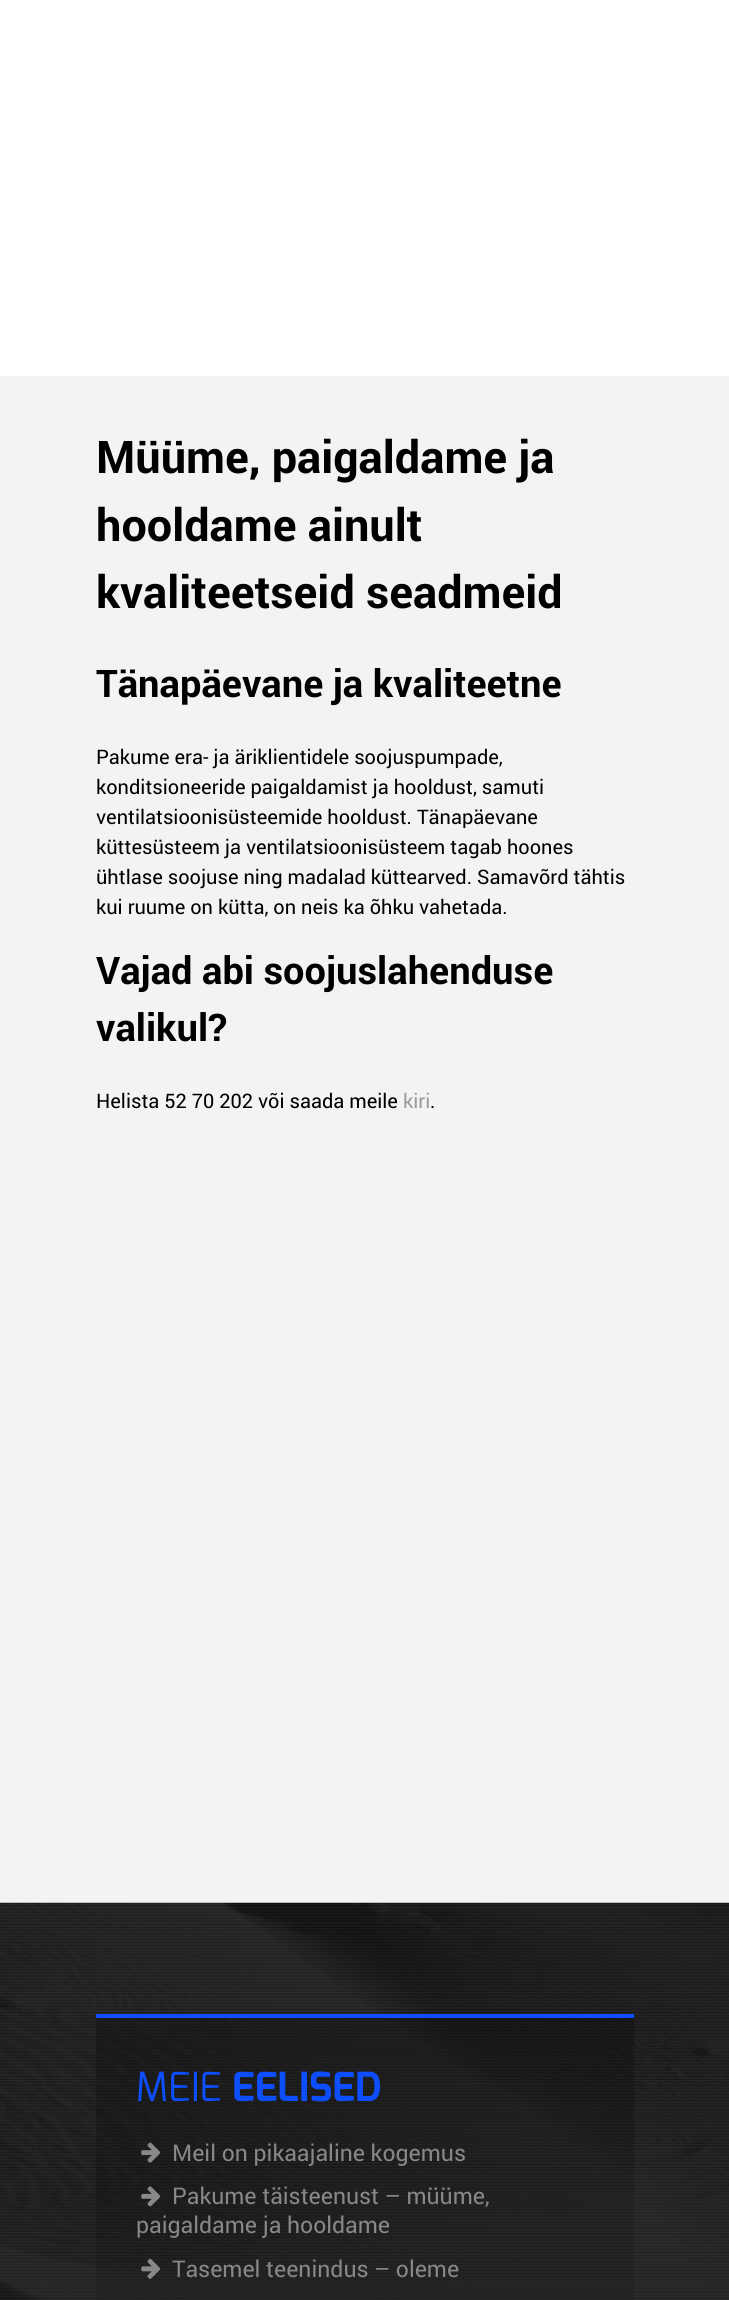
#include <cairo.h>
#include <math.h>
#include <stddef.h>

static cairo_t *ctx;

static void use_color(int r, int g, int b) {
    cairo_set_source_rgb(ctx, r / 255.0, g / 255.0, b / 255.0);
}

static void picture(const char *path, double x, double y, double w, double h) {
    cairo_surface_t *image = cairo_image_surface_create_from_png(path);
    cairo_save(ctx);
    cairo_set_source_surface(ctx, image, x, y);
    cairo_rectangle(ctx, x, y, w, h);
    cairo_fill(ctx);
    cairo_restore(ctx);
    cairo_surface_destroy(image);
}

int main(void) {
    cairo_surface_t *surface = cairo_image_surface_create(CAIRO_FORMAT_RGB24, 729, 2300);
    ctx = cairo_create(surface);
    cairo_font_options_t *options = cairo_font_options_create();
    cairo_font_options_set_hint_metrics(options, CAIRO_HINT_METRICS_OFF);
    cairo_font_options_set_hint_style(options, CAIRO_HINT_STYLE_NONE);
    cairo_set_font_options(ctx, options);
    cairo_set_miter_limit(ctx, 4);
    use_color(255, 255, 255);
    cairo_paint(ctx);
    use_color(243, 243, 243);
    cairo_rectangle(ctx, 0, 376, 729, 1527);
    cairo_fill(ctx);
    cairo_select_font_face(ctx, "roboto", CAIRO_FONT_SLANT_NORMAL, CAIRO_FONT_WEIGHT_BOLD);
    cairo_set_font_size(ctx, 45);
    use_color(0, 0, 0);
    cairo_move_to(ctx, 96, 473);
    cairo_show_text(ctx, "Müüme, paigaldame ja");
    cairo_move_to(ctx, 96, 541);
    cairo_show_text(ctx, "hooldame ainult");
    cairo_move_to(ctx, 96, 608);
    cairo_show_text(ctx, "kvaliteetseid seadmeid");
    cairo_set_font_size(ctx, 38);
    cairo_move_to(ctx, 96, 697);
    cairo_show_text(ctx, "Tänapäevane ja kvaliteetne");
    cairo_select_font_face(ctx, "roboto", CAIRO_FONT_SLANT_NORMAL, CAIRO_FONT_WEIGHT_NORMAL);
    cairo_set_font_size(ctx, 20);
    cairo_move_to(ctx, 96, 764);
    cairo_show_text(ctx, "Pakume era- ja äriklientidele soojuspumpade,");
    cairo_move_to(ctx, 96, 794);
    cairo_show_text(ctx, "konditsioneeride paigaldamist ja hooldust, samuti");
    cairo_move_to(ctx, 96, 824);
    cairo_show_text(ctx, "ventilatsioonisüsteemide hooldust. Tänapäevane");
    cairo_move_to(ctx, 96, 854);
    cairo_show_text(ctx, "küttesüsteem ja ventilatsioonisüsteem tagab hoones");
    cairo_move_to(ctx, 96, 884);
    cairo_show_text(ctx, "ühtlase soojuse ning madalad küttearved. Samavõrd tähtis");
    cairo_move_to(ctx, 96, 914);
    cairo_show_text(ctx, "kui ruume on kütta, on neis ka õhku vahetada.");
    cairo_select_font_face(ctx, "roboto", CAIRO_FONT_SLANT_NORMAL, CAIRO_FONT_WEIGHT_BOLD);
    cairo_set_font_size(ctx, 38);
    cairo_move_to(ctx, 96, 984);
    cairo_show_text(ctx, "Vajad abi soojuslahenduse");
    cairo_move_to(ctx, 96, 1041);
    cairo_show_text(ctx, "valikul?");
    cairo_select_font_face(ctx, "roboto", CAIRO_FONT_SLANT_NORMAL, CAIRO_FONT_WEIGHT_NORMAL);
    cairo_set_font_size(ctx, 20);
    cairo_move_to(ctx, 96, 1108);
    cairo_show_text(ctx, "Helista 52 70 202 või saada meile");
    use_color(154, 154, 154);
    cairo_move_to(ctx, 403, 1108);
    cairo_show_text(ctx, "kiri");
    use_color(0, 0, 0);
    cairo_move_to(ctx, 430, 1108);
    cairo_show_text(ctx, ".");
    picture("img1.png", 0, 1902, 729, 398);
    use_color(13, 78, 255);
    cairo_rectangle(ctx, 96, 2014, 538, 4);
    cairo_fill(ctx);
    cairo_select_font_face(ctx, "Exo", CAIRO_FONT_SLANT_NORMAL, CAIRO_FONT_WEIGHT_NORMAL);
    cairo_set_font_size(ctx, 40);
    cairo_move_to(ctx, 136, 2101);
    cairo_show_text(ctx, "MEIE");
    cairo_select_font_face(ctx, "Exo", CAIRO_FONT_SLANT_NORMAL, CAIRO_FONT_WEIGHT_BOLD);
    cairo_move_to(ctx, 232, 2101);
    cairo_show_text(ctx, "EELISED");
    picture("img2.png", 141, 2142, 20, 21);
    cairo_select_font_face(ctx, "roboto", CAIRO_FONT_SLANT_NORMAL, CAIRO_FONT_WEIGHT_NORMAL);
    cairo_set_font_size(ctx, 23);
    use_color(136, 136, 136);
    cairo_move_to(ctx, 172, 2161);
    cairo_show_text(ctx, "Meil on pikaajaline kogemus");
    picture("img3.png", 141, 2186, 20, 21);
    cairo_move_to(ctx, 172, 2204);
    cairo_show_text(ctx, "Pakume täisteenust – müüme,");
    cairo_move_to(ctx, 136, 2233);
    cairo_show_text(ctx, "paigaldame ja hooldame");
    picture("img4.png", 141, 2258, 20, 21);
    cairo_move_to(ctx, 172, 2277);
    cairo_show_text(ctx, "Tasemel teenindus – oleme");
    cairo_surface_write_to_png(surface, "result.png");
    cairo_font_options_destroy(options);
    cairo_destroy(ctx);
    cairo_surface_destroy(surface);
    return 0;
}
